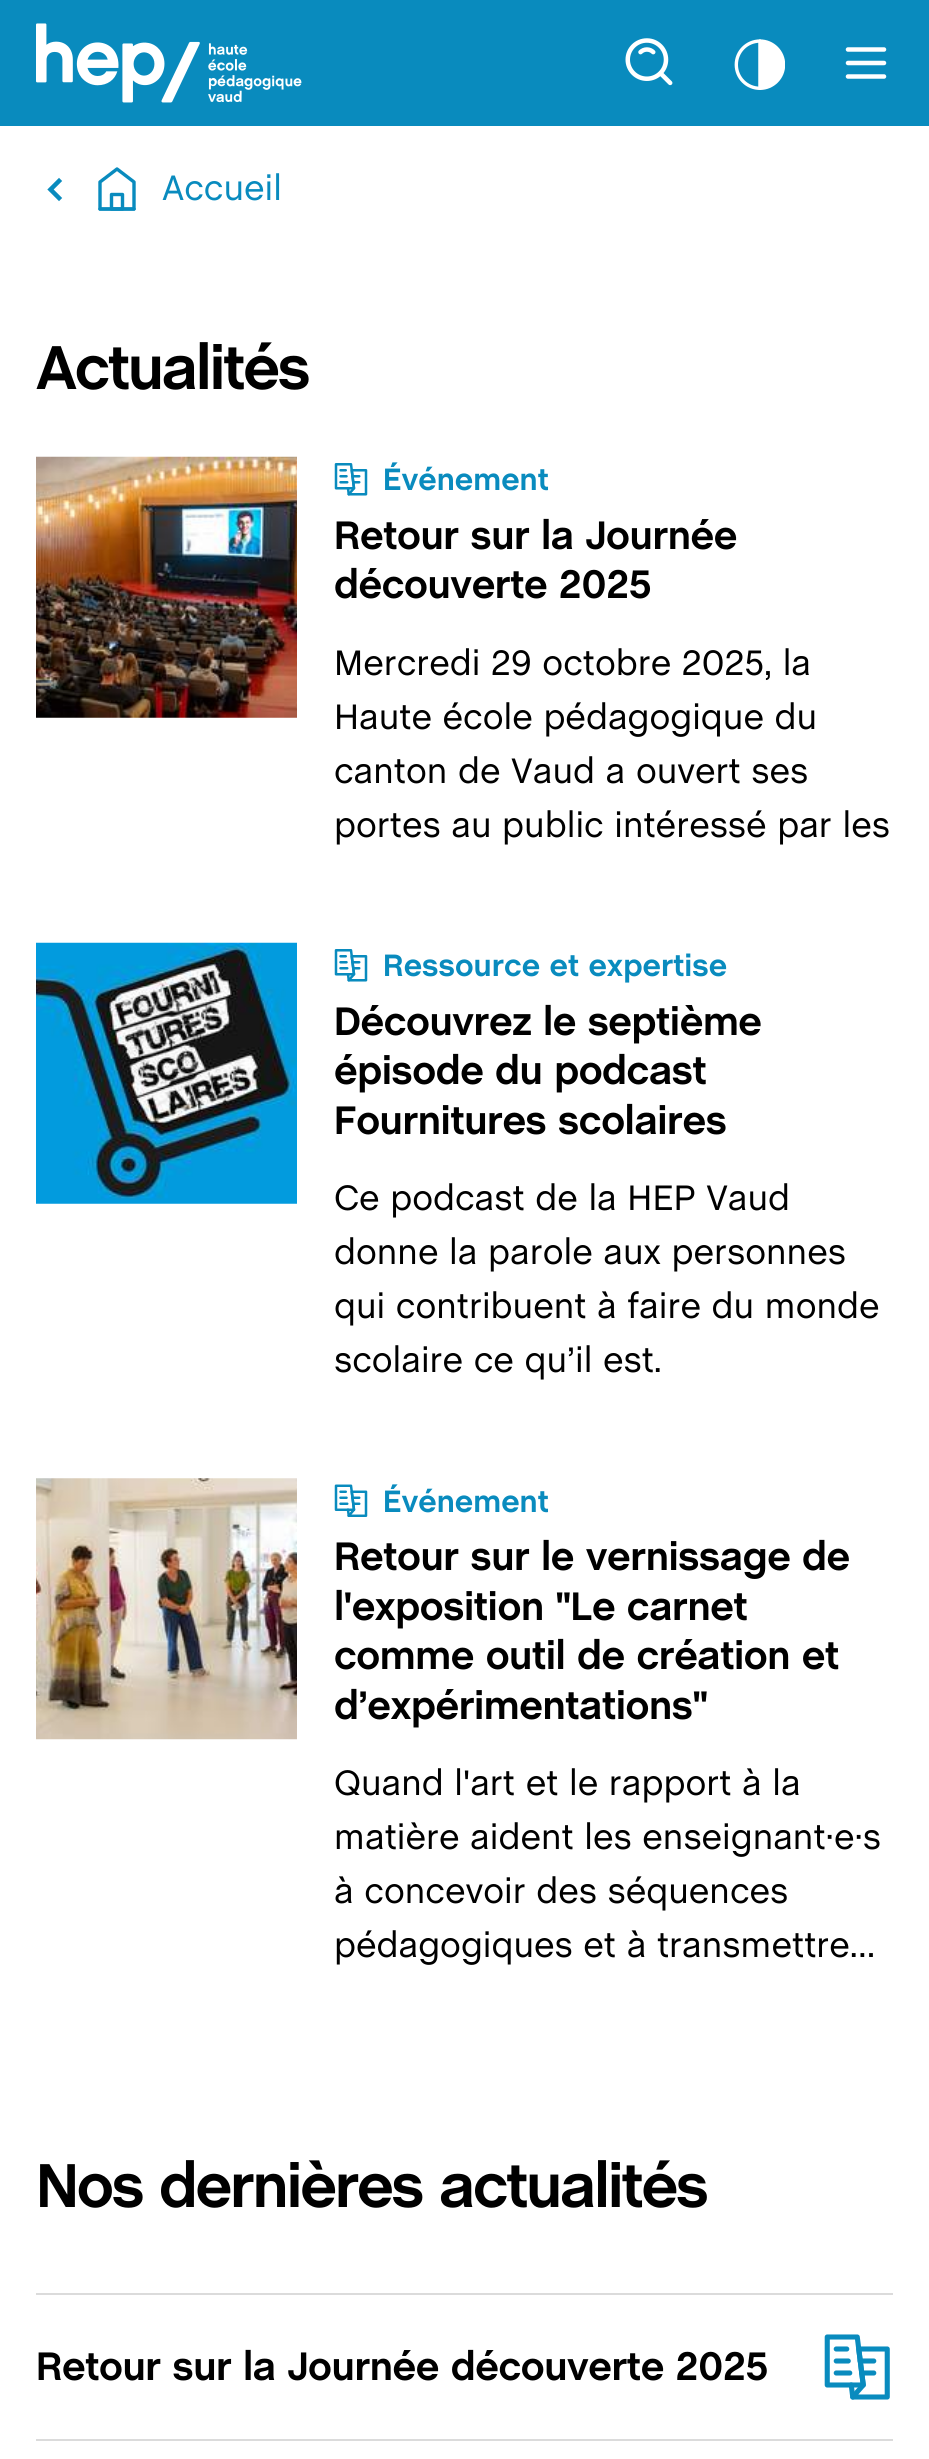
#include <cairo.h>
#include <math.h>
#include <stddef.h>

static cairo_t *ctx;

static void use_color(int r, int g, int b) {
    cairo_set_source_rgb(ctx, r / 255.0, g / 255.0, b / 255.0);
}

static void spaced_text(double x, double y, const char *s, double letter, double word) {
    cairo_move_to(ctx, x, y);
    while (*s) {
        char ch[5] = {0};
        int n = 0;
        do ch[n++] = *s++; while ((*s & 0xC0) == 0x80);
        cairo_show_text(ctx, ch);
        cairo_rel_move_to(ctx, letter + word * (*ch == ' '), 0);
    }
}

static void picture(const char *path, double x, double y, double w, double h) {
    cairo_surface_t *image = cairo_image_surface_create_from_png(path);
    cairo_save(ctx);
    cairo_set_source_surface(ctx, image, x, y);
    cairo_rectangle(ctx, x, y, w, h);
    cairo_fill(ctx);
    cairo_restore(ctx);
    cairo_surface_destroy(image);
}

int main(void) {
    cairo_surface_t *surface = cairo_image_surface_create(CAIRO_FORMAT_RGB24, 929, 2459);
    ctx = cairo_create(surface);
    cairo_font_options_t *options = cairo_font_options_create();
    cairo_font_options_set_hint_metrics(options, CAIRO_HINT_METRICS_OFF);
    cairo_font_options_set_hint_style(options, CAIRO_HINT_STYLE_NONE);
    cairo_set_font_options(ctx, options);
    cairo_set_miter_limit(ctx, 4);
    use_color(255, 255, 255);
    cairo_paint(ctx);
    use_color(9, 139, 190);
    cairo_rectangle(ctx, 0, 0, 929, 126);
    cairo_fill(ctx);
    picture("img1.png", 36, 23, 266, 80);
    picture("img2.png", 625, 38, 48, 48);
    picture("img3.png", 734, 39, 51, 51);
    cairo_new_path(ctx);
    cairo_move_to(ctx, 848, 49.5);
    cairo_line_to(ctx, 884, 49.5);
    cairo_move_to(ctx, 848, 63);
    cairo_line_to(ctx, 884, 63);
    cairo_move_to(ctx, 848, 76.5);
    cairo_line_to(ctx, 884, 76.5);
    use_color(255, 255, 255);
    cairo_set_line_width(ctx, 4.5);
    cairo_set_line_cap(ctx, CAIRO_LINE_CAP_ROUND);
    cairo_set_line_join(ctx, CAIRO_LINE_JOIN_ROUND);
    cairo_stroke(ctx);
    cairo_new_path(ctx);
    cairo_move_to(ctx, 59, 181);
    cairo_line_to(ctx, 50.5, 189.5);
    cairo_line_to(ctx, 59, 198);
    use_color(9, 139, 190);
    cairo_set_line_cap(ctx, CAIRO_LINE_CAP_SQUARE);
    cairo_set_line_join(ctx, CAIRO_LINE_JOIN_MITER);
    cairo_stroke(ctx);
    cairo_new_path(ctx);
    cairo_move_to(ctx, 100, 182);
    cairo_line_to(ctx, 100, 209);
    cairo_line_to(ctx, 134, 209);
    cairo_line_to(ctx, 134, 182);
    cairo_line_to(ctx, 117, 169);
    cairo_close_path(ctx);
    cairo_set_line_width(ctx, 3.4);
    cairo_set_line_cap(ctx, CAIRO_LINE_CAP_ROUND);
    cairo_set_line_join(ctx, CAIRO_LINE_JOIN_ROUND);
    cairo_stroke(ctx);
    cairo_new_path(ctx);
    cairo_move_to(ctx, 111.5, 194.5);
    cairo_line_to(ctx, 111.5, 209);
    cairo_line_to(ctx, 122.5, 209);
    cairo_line_to(ctx, 122.5, 194.5);
    cairo_close_path(ctx);
    cairo_set_line_cap(ctx, CAIRO_LINE_CAP_BUTT);
    cairo_stroke(ctx);
    cairo_new_path(ctx);
    cairo_move_to(ctx, 100, 209);
    cairo_line_to(ctx, 134, 209);
    cairo_set_line_cap(ctx, CAIRO_LINE_CAP_ROUND);
    cairo_set_line_join(ctx, CAIRO_LINE_JOIN_MITER);
    cairo_stroke(ctx);
    cairo_select_font_face(ctx, "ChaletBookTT", CAIRO_FONT_SLANT_NORMAL, CAIRO_FONT_WEIGHT_NORMAL);
    cairo_set_font_size(ctx, 36);
    cairo_move_to(ctx, 162, 200);
    cairo_show_text(ctx, "Accueil");
    cairo_select_font_face(ctx, "ChaletBookTT", CAIRO_FONT_SLANT_NORMAL, CAIRO_FONT_WEIGHT_BOLD);
    cairo_set_font_size(ctx, 63);
    use_color(0, 0, 0);
    spaced_text(36, 389, "Actualités", -2.25, 0);
    picture("img4.png", 36, 456, 261, 262);
    picture("img5.png", 334, 463, 34, 33);
    cairo_set_font_size(ctx, 31.5);
    use_color(9, 139, 190);
    cairo_move_to(ctx, 383, 490);
    cairo_show_text(ctx, "Événement");
    cairo_set_font_size(ctx, 40.5);
    use_color(0, 0, 0);
    spaced_text(334, 549, "Retour sur la Journée", -0.45, 0);
    spaced_text(334, 598, "découverte 2025", -0.45, 0);
    cairo_select_font_face(ctx, "ChaletBookTT", CAIRO_FONT_SLANT_NORMAL, CAIRO_FONT_WEIGHT_NORMAL);
    cairo_set_font_size(ctx, 36);
    cairo_move_to(ctx, 334, 675);
    cairo_show_text(ctx, "Mercredi 29 octobre 2025, la");
    cairo_move_to(ctx, 334, 729);
    cairo_show_text(ctx, "Haute école pédagogique du");
    cairo_move_to(ctx, 334, 783);
    cairo_show_text(ctx, "canton de Vaud a ouvert ses");
    cairo_move_to(ctx, 334, 837);
    cairo_show_text(ctx, "portes au public intéressé par les");
    picture("img6.png", 36, 942, 261, 262);
    picture("img5.png", 334, 949, 34, 33);
    cairo_select_font_face(ctx, "ChaletBookTT", CAIRO_FONT_SLANT_NORMAL, CAIRO_FONT_WEIGHT_BOLD);
    cairo_set_font_size(ctx, 31.5);
    use_color(9, 139, 190);
    cairo_move_to(ctx, 383, 976);
    cairo_show_text(ctx, "Ressource et expertise");
    cairo_set_font_size(ctx, 40.5);
    use_color(0, 0, 0);
    spaced_text(334, 1035, "Découvrez le septième", -0.45, 0);
    spaced_text(334, 1084, "épisode du podcast", -0.45, 0);
    spaced_text(334, 1134, "Fournitures scolaires", -0.45, 0);
    cairo_select_font_face(ctx, "ChaletBookTT", CAIRO_FONT_SLANT_NORMAL, CAIRO_FONT_WEIGHT_NORMAL);
    cairo_set_font_size(ctx, 36);
    cairo_move_to(ctx, 334, 1210);
    cairo_show_text(ctx, "Ce podcast de la HEP Vaud");
    cairo_move_to(ctx, 334, 1264);
    cairo_show_text(ctx, "donne la parole aux personnes");
    cairo_move_to(ctx, 334, 1318);
    cairo_show_text(ctx, "qui contribuent à faire du monde");
    cairo_move_to(ctx, 334, 1372);
    cairo_show_text(ctx, "scolaire ce qu’il est.");
    picture("img7.png", 36, 1478, 261, 262);
    picture("img8.png", 334, 1484, 34, 33);
    cairo_select_font_face(ctx, "ChaletBookTT", CAIRO_FONT_SLANT_NORMAL, CAIRO_FONT_WEIGHT_BOLD);
    cairo_set_font_size(ctx, 31.5);
    use_color(9, 139, 190);
    cairo_move_to(ctx, 383, 1512);
    cairo_show_text(ctx, "Événement");
    cairo_set_font_size(ctx, 40.5);
    use_color(0, 0, 0);
    spaced_text(334, 1570, "Retour sur le vernissage de", -0.45, 0);
    spaced_text(334, 1620, "l'exposition \"Le carnet", -0.45, 0);
    spaced_text(334, 1669, "comme outil de création et", -0.45, 0);
    spaced_text(334, 1719, "d’expérimentations\"", -0.45, 0);
    cairo_select_font_face(ctx, "ChaletBookTT", CAIRO_FONT_SLANT_NORMAL, CAIRO_FONT_WEIGHT_NORMAL);
    cairo_set_font_size(ctx, 36);
    cairo_move_to(ctx, 334, 1795);
    cairo_show_text(ctx, "Quand l'art et le rapport à la");
    cairo_move_to(ctx, 334, 1849);
    cairo_show_text(ctx, "matière aident les enseignant·e·s");
    cairo_move_to(ctx, 334, 1903);
    cairo_show_text(ctx, "à concevoir des séquences");
    cairo_move_to(ctx, 334, 1957);
    cairo_show_text(ctx, "pédagogiques et à transmettre…");
    cairo_select_font_face(ctx, "ChaletBookTT", CAIRO_FONT_SLANT_NORMAL, CAIRO_FONT_WEIGHT_BOLD);
    cairo_set_font_size(ctx, 63);
    spaced_text(36, 2207, "Nos dernières actualités", -2.25, 0);
    use_color(219, 219, 219);
    cairo_rectangle(ctx, 36, 2293, 857, 2);
    cairo_fill(ctx);
    cairo_set_font_size(ctx, 40.5);
    use_color(0, 0, 0);
    spaced_text(36, 2380, "Retour sur la Journée découverte 2025", -0.45, 0);
    picture("img9.png", 824, 2334, 66, 66);
    use_color(219, 219, 219);
    cairo_rectangle(ctx, 36, 2439, 857, 2);
    cairo_fill(ctx);
    cairo_surface_write_to_png(surface, "result.png");
    cairo_font_options_destroy(options);
    cairo_destroy(ctx);
    cairo_surface_destroy(surface);
    return 0;
}
